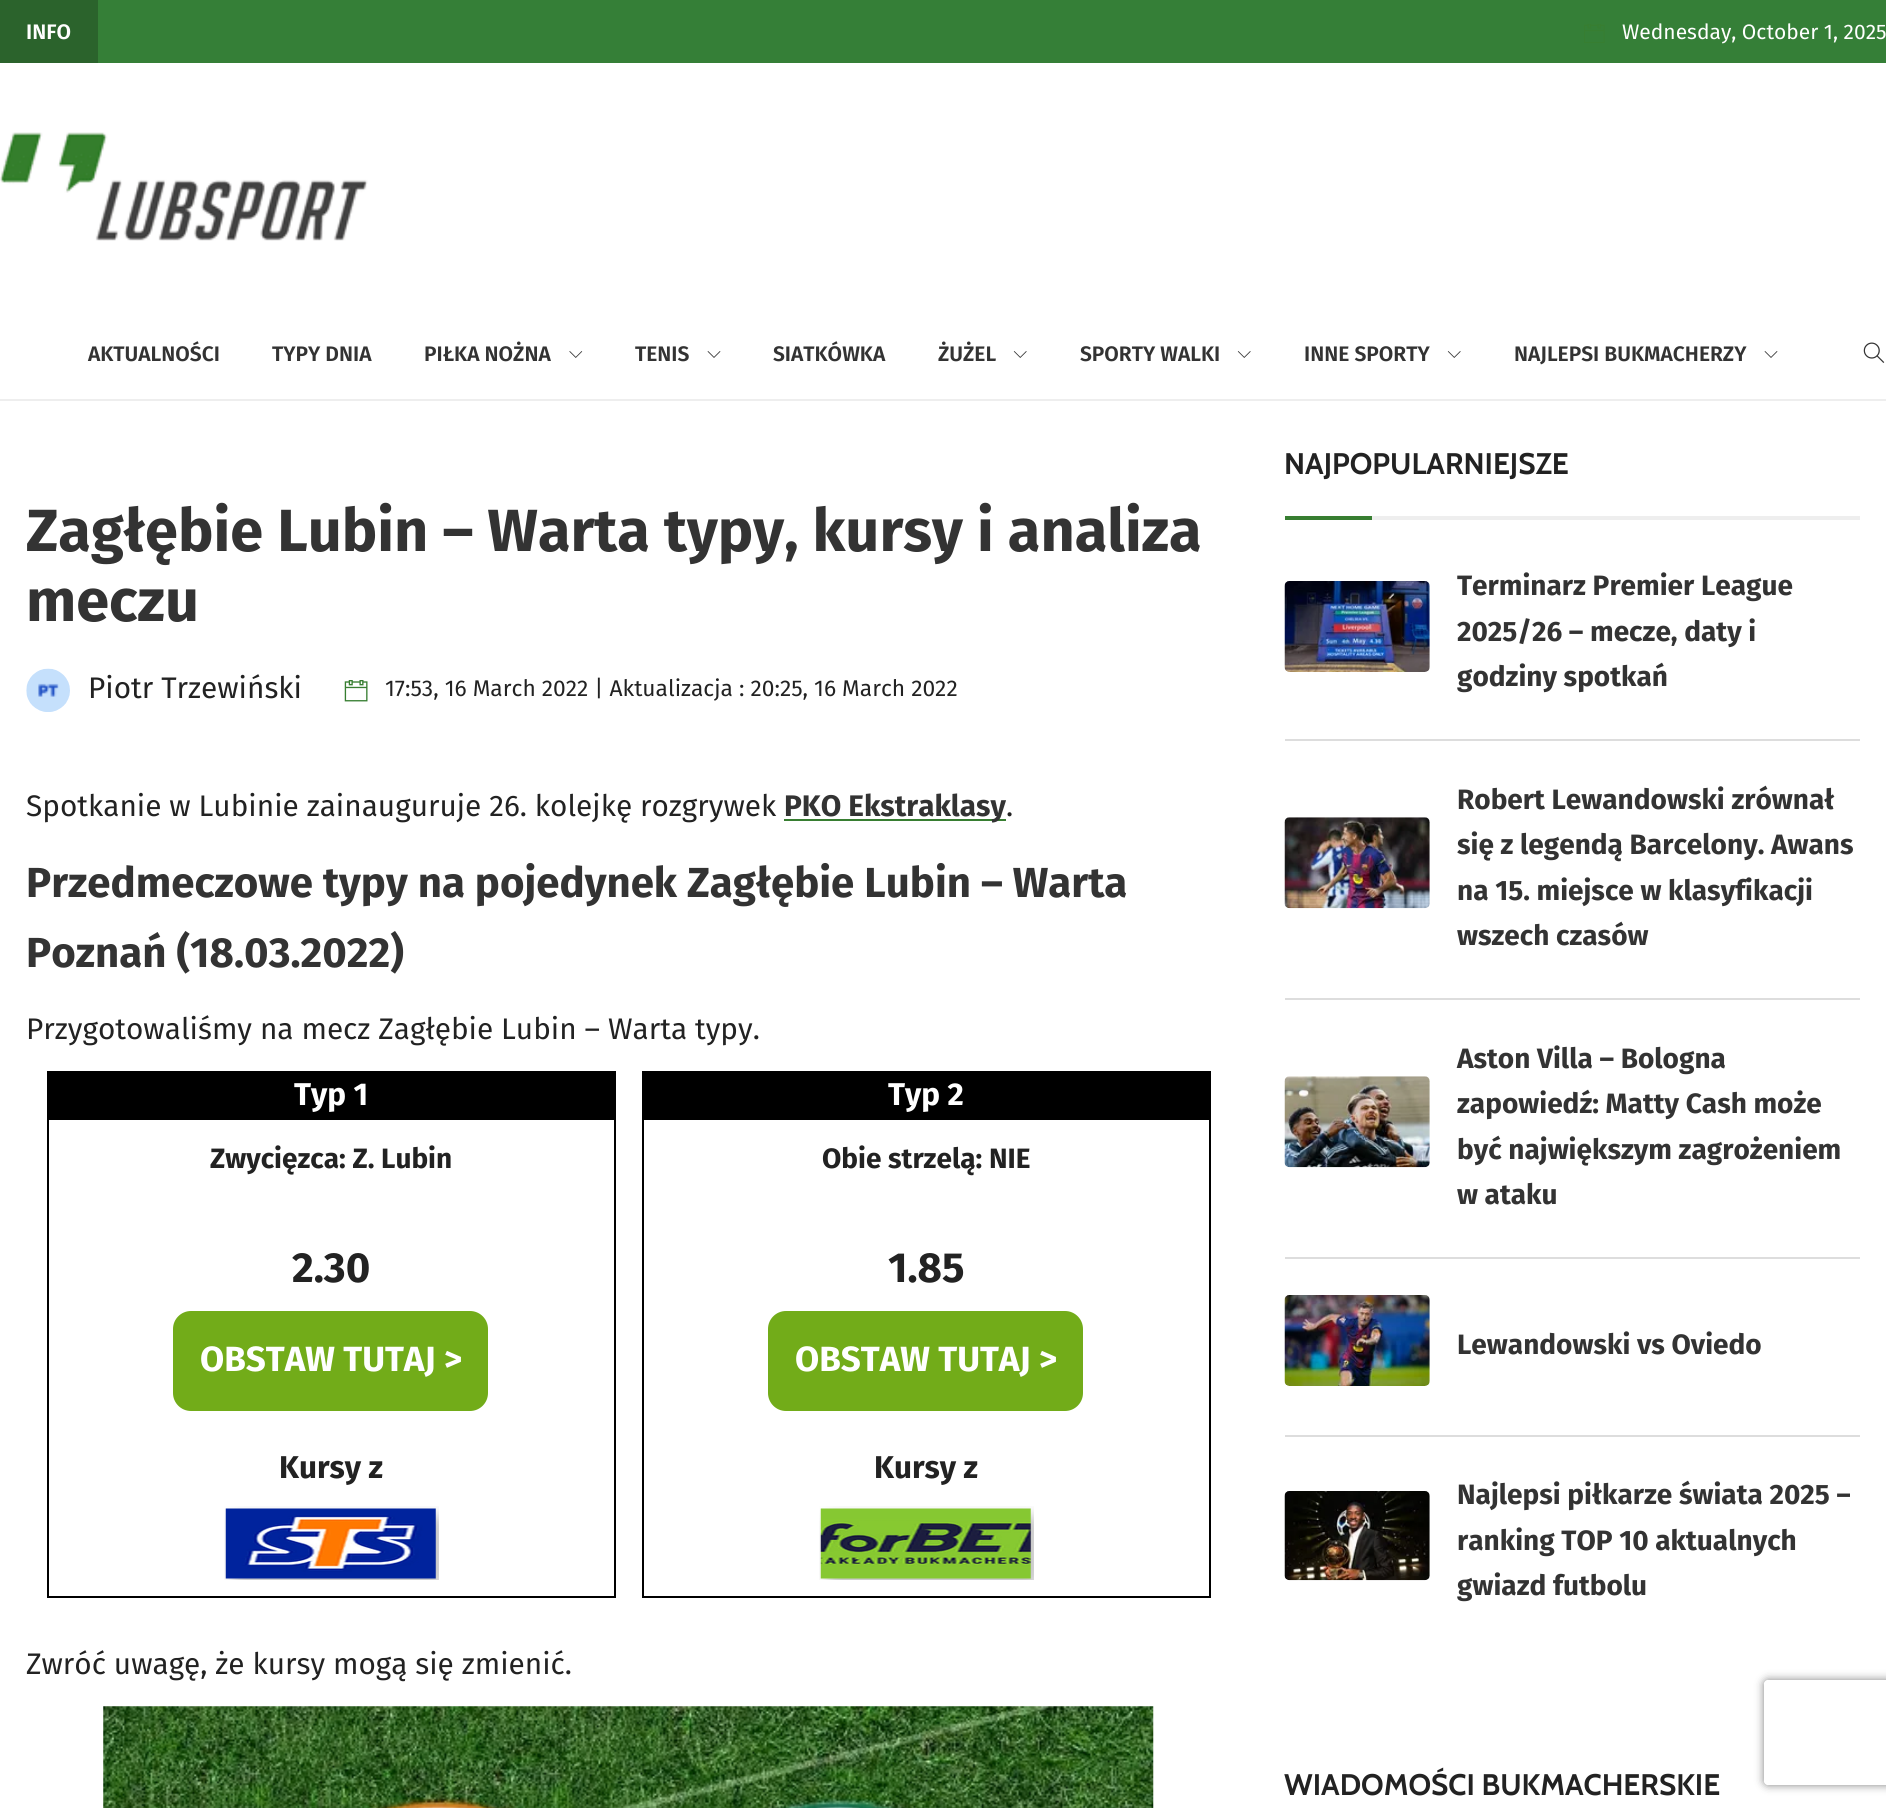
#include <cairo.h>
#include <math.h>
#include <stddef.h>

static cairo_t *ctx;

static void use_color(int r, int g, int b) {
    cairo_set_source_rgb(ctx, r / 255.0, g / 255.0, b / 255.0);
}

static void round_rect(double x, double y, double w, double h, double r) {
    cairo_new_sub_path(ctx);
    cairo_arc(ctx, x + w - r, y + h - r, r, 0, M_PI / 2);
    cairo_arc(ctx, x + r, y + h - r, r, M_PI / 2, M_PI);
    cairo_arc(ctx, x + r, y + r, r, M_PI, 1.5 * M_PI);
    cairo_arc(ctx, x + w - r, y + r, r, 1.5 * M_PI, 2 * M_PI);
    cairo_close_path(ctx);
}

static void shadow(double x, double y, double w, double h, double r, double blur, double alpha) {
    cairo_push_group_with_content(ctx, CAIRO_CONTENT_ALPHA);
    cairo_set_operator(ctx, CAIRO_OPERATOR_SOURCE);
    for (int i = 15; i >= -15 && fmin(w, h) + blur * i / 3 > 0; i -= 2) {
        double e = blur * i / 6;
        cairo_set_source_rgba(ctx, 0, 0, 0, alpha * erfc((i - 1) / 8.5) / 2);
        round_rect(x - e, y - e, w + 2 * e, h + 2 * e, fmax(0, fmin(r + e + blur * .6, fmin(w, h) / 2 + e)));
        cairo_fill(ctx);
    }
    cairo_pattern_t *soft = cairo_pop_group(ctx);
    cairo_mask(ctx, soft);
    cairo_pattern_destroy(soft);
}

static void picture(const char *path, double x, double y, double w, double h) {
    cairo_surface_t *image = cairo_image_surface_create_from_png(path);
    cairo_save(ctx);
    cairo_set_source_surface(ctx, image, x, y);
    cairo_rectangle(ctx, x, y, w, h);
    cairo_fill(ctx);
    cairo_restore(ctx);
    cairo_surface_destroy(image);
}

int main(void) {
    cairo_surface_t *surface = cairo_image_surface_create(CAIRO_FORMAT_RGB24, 1886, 1808);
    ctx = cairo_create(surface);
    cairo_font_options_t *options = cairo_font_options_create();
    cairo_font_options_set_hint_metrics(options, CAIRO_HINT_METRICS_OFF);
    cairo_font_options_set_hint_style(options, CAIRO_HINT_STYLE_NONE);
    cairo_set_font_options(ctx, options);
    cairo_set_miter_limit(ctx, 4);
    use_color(255, 255, 255);
    cairo_paint(ctx);
    use_color(53, 127, 55);
    cairo_rectangle(ctx, 98, 0, 1788, 63);
    cairo_fill(ctx);
    use_color(43, 99, 44);
    cairo_rectangle(ctx, 0, 0, 98, 63);
    cairo_fill(ctx);
    cairo_select_font_face(ctx, "Fira Sans SemiBold", CAIRO_FONT_SLANT_NORMAL, CAIRO_FONT_WEIGHT_NORMAL);
    cairo_set_font_size(ctx, 21);
    use_color(255, 255, 255);
    cairo_move_to(ctx, 26, 39);
    cairo_show_text(ctx, "INFO");
    picture("img1.png", 1584, 24, 21, 19);
    cairo_select_font_face(ctx, "Fira Sans", CAIRO_FONT_SLANT_NORMAL, CAIRO_FONT_WEIGHT_NORMAL);
    cairo_move_to(ctx, 1622, 39);
    cairo_show_text(ctx, "Wednesday, October 1, 2025");
    picture("img2.png", 0, 132, 368, 109);
    use_color(238, 238, 238);
    cairo_new_path(ctx);
    cairo_move_to(ctx, 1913, 401);
    cairo_line_to(ctx, -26, 401);
    cairo_line_to(ctx, -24, 399);
    cairo_line_to(ctx, 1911, 399);
    cairo_close_path(ctx);
    cairo_fill(ctx);
    cairo_select_font_face(ctx, "Fira Sans SemiBold", CAIRO_FONT_SLANT_NORMAL, CAIRO_FONT_WEIGHT_NORMAL);
    use_color(51, 51, 51);
    cairo_move_to(ctx, 88, 361);
    cairo_show_text(ctx, "AKTUALNOŚCI");
    cairo_move_to(ctx, 272, 361);
    cairo_show_text(ctx, "TYPY DNIA");
    cairo_move_to(ctx, 424, 361);
    cairo_show_text(ctx, "PIŁKA NOŻNA");
    picture("img3.png", 569, 351, 14, 7);
    cairo_move_to(ctx, 635, 361);
    cairo_show_text(ctx, "TENIS");
    picture("img4.png", 707, 351, 14, 7);
    cairo_move_to(ctx, 773, 361);
    cairo_show_text(ctx, "SIATKÓWKA");
    cairo_move_to(ctx, 938, 361);
    cairo_show_text(ctx, "ŻUŻEL");
    picture("img5.png", 1013, 351, 14, 7);
    cairo_move_to(ctx, 1080, 361);
    cairo_show_text(ctx, "SPORTY WALKI");
    picture("img5.png", 1237, 351, 14, 7);
    cairo_move_to(ctx, 1304, 361);
    cairo_show_text(ctx, "INNE SPORTY");
    picture("img5.png", 1447, 351, 14, 7);
    cairo_move_to(ctx, 1514, 361);
    cairo_show_text(ctx, "NAJLEPSI BUKMACHERZY");
    picture("img4.png", 1764, 351, 14, 7);
    picture("img6.png", 1863, 342, 22, 21);
    cairo_select_font_face(ctx, "Fira Sans", CAIRO_FONT_SLANT_NORMAL, CAIRO_FONT_WEIGHT_BOLD);
    cairo_set_font_size(ctx, 59.5);
    cairo_move_to(ctx, 26, 551);
    cairo_show_text(ctx, "Zagłębie Lubin – Warta typy, kursy i analiza");
    cairo_move_to(ctx, 26, 621);
    cairo_show_text(ctx, "meczu");
    picture("img7.png", 26, 668, 44, 44);
    cairo_select_font_face(ctx, "Fira Sans", CAIRO_FONT_SLANT_NORMAL, CAIRO_FONT_WEIGHT_NORMAL);
    cairo_set_font_size(ctx, 29.75);
    use_color(34, 34, 34);
    cairo_move_to(ctx, 88, 698);
    cairo_show_text(ctx, "Piotr Trzewiński");
    picture("img8.png", 344, 680, 24, 22);
    cairo_set_font_size(ctx, 22.75);
    cairo_move_to(ctx, 385, 696);
    cairo_show_text(ctx, "17:53, 16 March 2022 | Aktualizacja : 20:25, 16 March 2022");
    cairo_set_font_size(ctx, 29.75);
    cairo_move_to(ctx, 26, 816);
    cairo_show_text(ctx, "Spotkanie w Lubinie zainauguruje 26. kolejkę rozgrywek");
    use_color(55, 126, 49);
    cairo_rectangle(ctx, 784, 819, 222, 2);
    cairo_fill(ctx);
    cairo_select_font_face(ctx, "Fira Sans", CAIRO_FONT_SLANT_NORMAL, CAIRO_FONT_WEIGHT_BOLD);
    use_color(51, 51, 51);
    cairo_move_to(ctx, 784, 816);
    cairo_show_text(ctx, "PKO Ekstraklasy");
    cairo_select_font_face(ctx, "Fira Sans", CAIRO_FONT_SLANT_NORMAL, CAIRO_FONT_WEIGHT_NORMAL);
    use_color(34, 34, 34);
    cairo_move_to(ctx, 1006, 816);
    cairo_show_text(ctx, ".");
    cairo_select_font_face(ctx, "Fira Sans", CAIRO_FONT_SLANT_NORMAL, CAIRO_FONT_WEIGHT_BOLD);
    cairo_set_font_size(ctx, 42);
    use_color(51, 51, 51);
    cairo_move_to(ctx, 26, 897);
    cairo_show_text(ctx, "Przedmeczowe typy na pojedynek Zagłębie Lubin – Warta");
    cairo_move_to(ctx, 26, 967);
    cairo_show_text(ctx, "Poznań (18.03.2022)");
    cairo_select_font_face(ctx, "Fira Sans", CAIRO_FONT_SLANT_NORMAL, CAIRO_FONT_WEIGHT_NORMAL);
    cairo_set_font_size(ctx, 29.75);
    use_color(34, 34, 34);
    cairo_move_to(ctx, 26, 1039);
    cairo_show_text(ctx, "Przygotowaliśmy na mecz Zagłębie Lubin – Warta typy.");
    cairo_rectangle(ctx, 48, 1072, 567, 525);
    use_color(0, 0, 0);
    cairo_stroke(ctx);
    cairo_rectangle(ctx, 49, 1073, 565, 47);
    cairo_fill(ctx);
    cairo_select_font_face(ctx, "Fira Sans", CAIRO_FONT_SLANT_NORMAL, CAIRO_FONT_WEIGHT_BOLD);
    cairo_set_font_size(ctx, 31.5);
    use_color(255, 255, 255);
    cairo_move_to(ctx, 294, 1105);
    cairo_show_text(ctx, "Typ 1");
    cairo_set_font_size(ctx, 28);
    use_color(34, 34, 34);
    cairo_move_to(ctx, 210, 1168);
    cairo_show_text(ctx, "Zwycięzca: Z. Lubin");
    cairo_set_font_size(ctx, 42);
    cairo_move_to(ctx, 292, 1282);
    cairo_show_text(ctx, "2.30");
    use_color(114, 172, 25);
    round_rect(173, 1311, 315, 100, 18);
    cairo_fill(ctx);
    cairo_set_font_size(ctx, 35);
    use_color(255, 255, 255);
    cairo_move_to(ctx, 200, 1371);
    cairo_show_text(ctx, "OBSTAW TUTAJ >");
    cairo_set_font_size(ctx, 31.5);
    use_color(34, 34, 34);
    cairo_move_to(ctx, 279, 1478);
    cairo_show_text(ctx, "Kursy z");
    picture("img9.png", 224, 1506, 215, 74);
    cairo_rectangle(ctx, 643, 1072, 567, 525);
    use_color(0, 0, 0);
    cairo_stroke(ctx);
    cairo_rectangle(ctx, 644, 1073, 565, 47);
    cairo_fill(ctx);
    use_color(255, 255, 255);
    cairo_move_to(ctx, 888, 1105);
    cairo_show_text(ctx, "Typ 2");
    cairo_set_font_size(ctx, 28);
    use_color(34, 34, 34);
    cairo_move_to(ctx, 822, 1168);
    cairo_show_text(ctx, "Obie strzelą: NIE");
    cairo_set_font_size(ctx, 42);
    cairo_move_to(ctx, 888, 1282);
    cairo_show_text(ctx, "1.85");
    use_color(114, 172, 25);
    round_rect(768, 1311, 315, 100, 18);
    cairo_fill(ctx);
    cairo_set_font_size(ctx, 35);
    use_color(255, 255, 255);
    cairo_move_to(ctx, 795, 1371);
    cairo_show_text(ctx, "OBSTAW TUTAJ >");
    cairo_set_font_size(ctx, 31.5);
    use_color(34, 34, 34);
    cairo_move_to(ctx, 874, 1478);
    cairo_show_text(ctx, "Kursy z");
    picture("img10.png", 819, 1506, 215, 74);
    cairo_select_font_face(ctx, "Fira Sans", CAIRO_FONT_SLANT_NORMAL, CAIRO_FONT_WEIGHT_NORMAL);
    cairo_set_font_size(ctx, 29.75);
    cairo_move_to(ctx, 26, 1674);
    cairo_show_text(ctx, "Zwróć uwagę, że kursy mogą się zmienić.");
    picture("img11.png", 103, 1706, 1051, 102);
    cairo_select_font_face(ctx, "Cabin", CAIRO_FONT_SLANT_NORMAL, CAIRO_FONT_WEIGHT_BOLD);
    cairo_move_to(ctx, 1284, 474);
    cairo_show_text(ctx, "NAJPOPULARNIEJSZE");
    use_color(55, 126, 49);
    cairo_rectangle(ctx, 1285, 516, 87, 4);
    cairo_fill(ctx);
    use_color(238, 238, 238);
    cairo_rectangle(ctx, 1372, 516, 488, 4);
    cairo_fill(ctx);
    use_color(221, 221, 221);
    cairo_rectangle(ctx, 1285, 739, 575, 2);
    cairo_fill(ctx);
    picture("img12.png", 1284, 581, 146, 91);
    cairo_select_font_face(ctx, "Fira Sans", CAIRO_FONT_SLANT_NORMAL, CAIRO_FONT_WEIGHT_BOLD);
    cairo_set_font_size(ctx, 28);
    use_color(51, 51, 51);
    cairo_move_to(ctx, 1457, 595);
    cairo_show_text(ctx, "Terminarz Premier League");
    cairo_move_to(ctx, 1457, 641);
    cairo_show_text(ctx, "2025/26 – mecze, daty i");
    cairo_move_to(ctx, 1457, 686);
    cairo_show_text(ctx, "godziny spotkań");
    use_color(221, 221, 221);
    cairo_rectangle(ctx, 1285, 998, 575, 2);
    cairo_fill(ctx);
    picture("img13.png", 1284, 817, 146, 92);
    use_color(51, 51, 51);
    cairo_move_to(ctx, 1457, 809);
    cairo_show_text(ctx, "Robert Lewandowski zrównał");
    cairo_move_to(ctx, 1457, 854);
    cairo_show_text(ctx, "się z legendą Barcelony. Awans");
    cairo_move_to(ctx, 1457, 900);
    cairo_show_text(ctx, "na 15. miejsce w klasyfikacji");
    cairo_move_to(ctx, 1457, 945);
    cairo_show_text(ctx, "wszech czasów");
    use_color(221, 221, 221);
    cairo_rectangle(ctx, 1285, 1257, 575, 2);
    cairo_fill(ctx);
    picture("img14.png", 1284, 1076, 146, 92);
    use_color(51, 51, 51);
    cairo_move_to(ctx, 1457, 1068);
    cairo_show_text(ctx, "Aston Villa – Bologna");
    cairo_move_to(ctx, 1457, 1113);
    cairo_show_text(ctx, "zapowiedź: Matty Cash może");
    cairo_move_to(ctx, 1457, 1159);
    cairo_show_text(ctx, "być największym zagrożeniem");
    cairo_move_to(ctx, 1457, 1204);
    cairo_show_text(ctx, "w ataku");
    use_color(221, 221, 221);
    cairo_rectangle(ctx, 1285, 1435, 575, 2);
    cairo_fill(ctx);
    picture("img15.png", 1284, 1295, 146, 91);
    use_color(51, 51, 51);
    cairo_move_to(ctx, 1457, 1354);
    cairo_show_text(ctx, "Lewandowski vs Oviedo");
    picture("img16.png", 1284, 1491, 146, 90);
    cairo_move_to(ctx, 1457, 1504);
    cairo_show_text(ctx, "Najlepsi piłkarze świata 2025 –");
    cairo_move_to(ctx, 1457, 1550);
    cairo_show_text(ctx, "ranking TOP 10 aktualnych");
    cairo_move_to(ctx, 1457, 1595);
    cairo_show_text(ctx, "gwiazd futbolu");
    cairo_select_font_face(ctx, "Cabin", CAIRO_FONT_SLANT_NORMAL, CAIRO_FONT_WEIGHT_BOLD);
    cairo_set_font_size(ctx, 29.75);
    use_color(34, 34, 34);
    cairo_move_to(ctx, 1284, 1795);
    cairo_show_text(ctx, "WIADOMOŚCI BUKMACHERSKIE");
    cairo_save(ctx);
    cairo_set_fill_rule(ctx, CAIRO_FILL_RULE_EVEN_ODD);
    cairo_new_path(ctx);
    cairo_move_to(ctx, 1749, 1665);
    cairo_line_to(ctx, 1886, 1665);
    cairo_line_to(ctx, 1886, 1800);
    cairo_line_to(ctx, 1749, 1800);
    cairo_close_path(ctx);
    cairo_move_to(ctx, 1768, 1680);
    cairo_line_to(ctx, 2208, 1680);
    cairo_curve_to(ctx, 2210, 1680, 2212, 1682, 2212, 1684);
    cairo_line_to(ctx, 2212, 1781);
    cairo_curve_to(ctx, 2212, 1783, 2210, 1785, 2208, 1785);
    cairo_line_to(ctx, 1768, 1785);
    cairo_curve_to(ctx, 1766, 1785, 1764, 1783, 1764, 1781);
    cairo_line_to(ctx, 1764, 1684);
    cairo_curve_to(ctx, 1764, 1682, 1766, 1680, 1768, 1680);
    cairo_close_path(ctx);
    cairo_clip(ctx);
    use_color(128, 128, 128);
    shadow(1764, 1680, 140, 105, 4, 4.5, 1);
    cairo_restore(ctx);
    cairo_surface_write_to_png(surface, "result.png");
    cairo_font_options_destroy(options);
    cairo_destroy(ctx);
    cairo_surface_destroy(surface);
    return 0;
}
